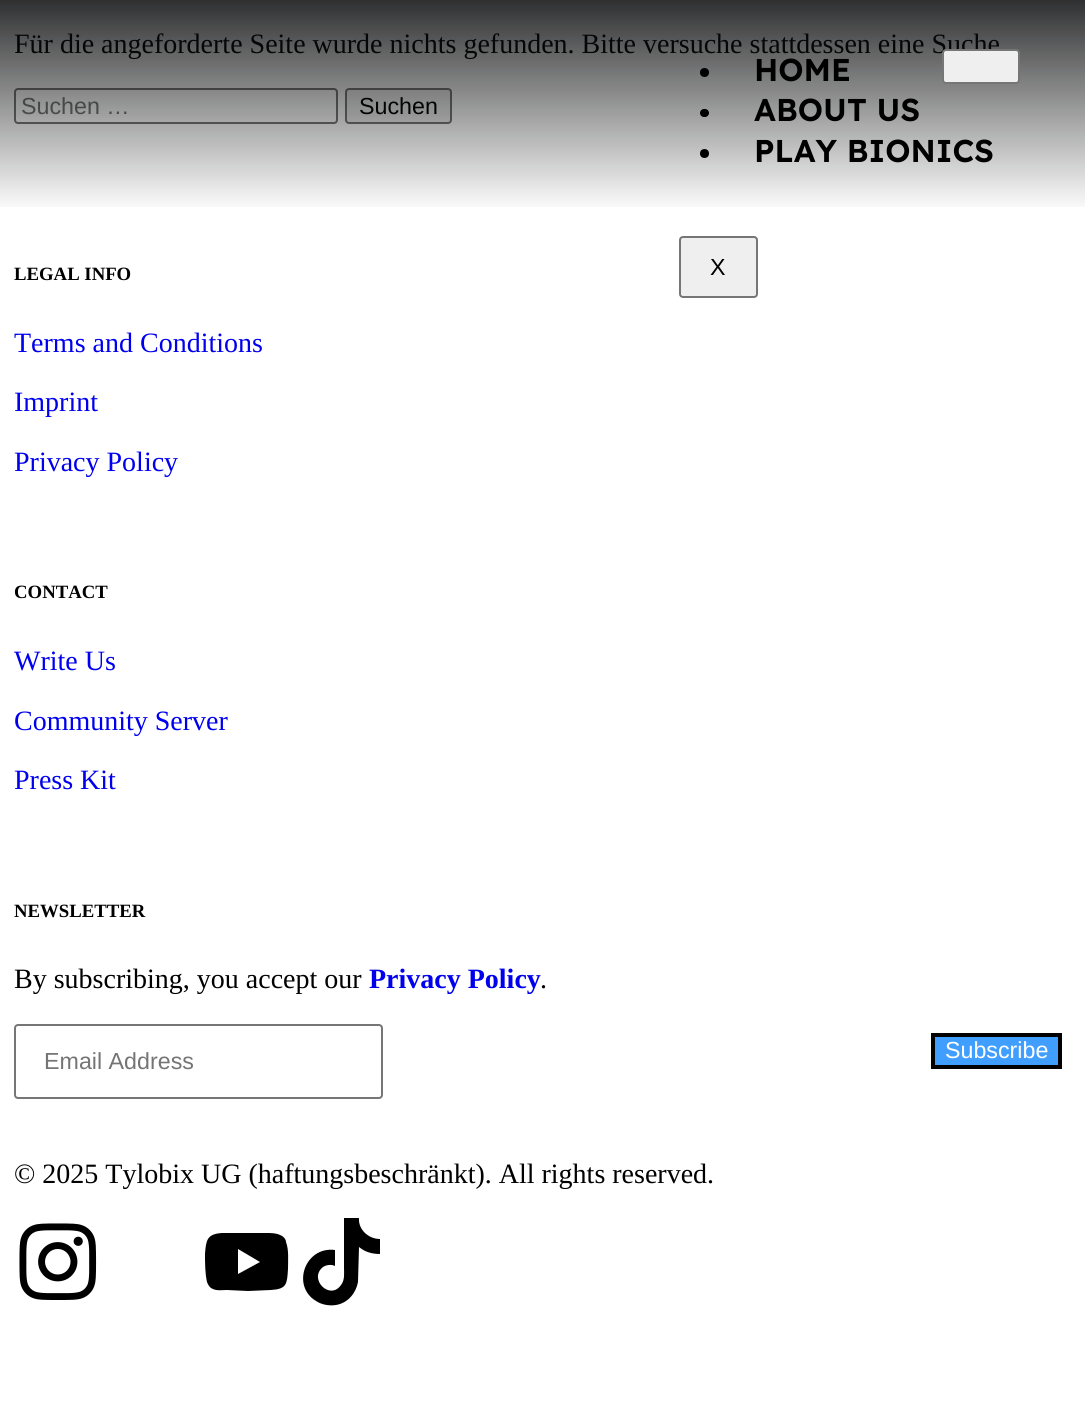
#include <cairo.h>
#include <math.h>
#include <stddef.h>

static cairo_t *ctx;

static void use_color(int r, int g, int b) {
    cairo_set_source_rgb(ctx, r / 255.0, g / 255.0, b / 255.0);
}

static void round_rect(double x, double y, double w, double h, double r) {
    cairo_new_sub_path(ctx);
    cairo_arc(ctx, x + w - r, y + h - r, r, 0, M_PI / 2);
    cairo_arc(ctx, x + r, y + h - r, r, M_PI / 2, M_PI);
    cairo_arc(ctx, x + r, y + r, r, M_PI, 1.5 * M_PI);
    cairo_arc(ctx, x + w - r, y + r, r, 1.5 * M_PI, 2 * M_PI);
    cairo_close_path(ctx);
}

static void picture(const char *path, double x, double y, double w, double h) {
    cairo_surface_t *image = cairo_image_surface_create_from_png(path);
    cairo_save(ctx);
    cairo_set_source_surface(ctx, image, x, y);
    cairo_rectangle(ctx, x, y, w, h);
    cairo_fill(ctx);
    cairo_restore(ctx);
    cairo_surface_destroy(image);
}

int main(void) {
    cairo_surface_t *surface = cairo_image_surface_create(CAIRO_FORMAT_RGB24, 1085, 1424);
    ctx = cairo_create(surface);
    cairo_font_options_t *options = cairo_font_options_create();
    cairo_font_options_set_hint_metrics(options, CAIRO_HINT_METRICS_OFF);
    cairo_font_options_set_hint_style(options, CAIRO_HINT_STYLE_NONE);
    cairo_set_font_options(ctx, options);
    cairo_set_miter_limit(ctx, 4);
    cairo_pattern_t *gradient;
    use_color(255, 255, 255);
    cairo_paint(ctx);
    cairo_select_font_face(ctx, "Liberation Serif", CAIRO_FONT_SLANT_NORMAL, CAIRO_FONT_WEIGHT_NORMAL);
    cairo_set_font_size(ctx, 28);
    use_color(0, 0, 0);
    cairo_move_to(ctx, 14, 53);
    cairo_show_text(ctx, "Für die angeforderte Seite wurde nichts gefunden. Bitte versuche stattdessen eine Suche");
    round_rect(15, 89, 322, 34, 3);
    use_color(118, 118, 118);
    cairo_stroke(ctx);
    cairo_select_font_face(ctx, "Liberation Sans", CAIRO_FONT_SLANT_NORMAL, CAIRO_FONT_WEIGHT_NORMAL);
    cairo_set_font_size(ctx, 23.25);
    use_color(117, 117, 117);
    cairo_move_to(ctx, 21, 114);
    cairo_show_text(ctx, "Suchen …");
    use_color(239, 239, 239);
    round_rect(346, 89, 105, 34, 3);
    cairo_fill_preserve(ctx);
    use_color(118, 118, 118);
    cairo_stroke(ctx);
    use_color(0, 0, 0);
    cairo_move_to(ctx, 359, 114);
    cairo_show_text(ctx, "Suchen");
    gradient = cairo_pattern_create_linear(543, 0, 543, 212);
    cairo_pattern_add_color_stop_rgba(gradient, 0, 0.031, 0.035, 0.039, 0.84);
    cairo_pattern_add_color_stop_rgba(gradient, 1, 0.031, 0.035, 0.039, 0);
    cairo_set_source(ctx, gradient);
    cairo_pattern_destroy(gradient);
    cairo_rectangle(ctx, 0, 0, 1085, 207);
    cairo_fill(ctx);
    use_color(239, 239, 239);
    round_rect(943, 50, 76, 33, 3);
    cairo_fill_preserve(ctx);
    use_color(118, 118, 118);
    cairo_stroke(ctx);
    use_color(0, 0, 0);
    cairo_arc(ctx, 704.5, 72.5, 4.5, 0, 2 * M_PI);
    cairo_fill(ctx);
    cairo_select_font_face(ctx, "Lexend SemiBold", CAIRO_FONT_SLANT_NORMAL, CAIRO_FONT_WEIGHT_NORMAL);
    cairo_set_font_size(ctx, 31.5);
    cairo_move_to(ctx, 754, 81);
    cairo_show_text(ctx, "HOME");
    round_rect(700, 109, 9, 8, 4);
    cairo_fill(ctx);
    cairo_move_to(ctx, 754, 121);
    cairo_show_text(ctx, "ABOUT US");
    cairo_new_path(ctx);
    cairo_arc(ctx, 704.5, 153.5, 4.5, 0, 2 * M_PI);
    cairo_fill(ctx);
    cairo_move_to(ctx, 754, 162);
    cairo_show_text(ctx, "PLAY BIONICS");
    use_color(239, 239, 239);
    round_rect(680, 237, 77, 60, 3);
    cairo_fill_preserve(ctx);
    use_color(118, 118, 118);
    cairo_stroke(ctx);
    cairo_select_font_face(ctx, "Liberation Sans", CAIRO_FONT_SLANT_NORMAL, CAIRO_FONT_WEIGHT_NORMAL);
    cairo_set_font_size(ctx, 23.25);
    use_color(0, 0, 0);
    cairo_move_to(ctx, 710, 275);
    cairo_show_text(ctx, "X");
    cairo_select_font_face(ctx, "Liberation Serif", CAIRO_FONT_SLANT_NORMAL, CAIRO_FONT_WEIGHT_BOLD);
    cairo_set_font_size(ctx, 18.75);
    cairo_move_to(ctx, 14, 280);
    cairo_show_text(ctx, "LEGAL INFO");
    cairo_select_font_face(ctx, "Liberation Serif", CAIRO_FONT_SLANT_NORMAL, CAIRO_FONT_WEIGHT_NORMAL);
    cairo_set_font_size(ctx, 28);
    use_color(0, 0, 238);
    cairo_move_to(ctx, 14, 352);
    cairo_show_text(ctx, "Terms and Conditions");
    cairo_move_to(ctx, 14, 411);
    cairo_show_text(ctx, "Imprint");
    cairo_move_to(ctx, 14, 471);
    cairo_show_text(ctx, "Privacy Policy");
    cairo_select_font_face(ctx, "Liberation Serif", CAIRO_FONT_SLANT_NORMAL, CAIRO_FONT_WEIGHT_BOLD);
    cairo_set_font_size(ctx, 18.75);
    use_color(0, 0, 0);
    cairo_move_to(ctx, 14, 598);
    cairo_show_text(ctx, "CONTACT");
    cairo_select_font_face(ctx, "Liberation Serif", CAIRO_FONT_SLANT_NORMAL, CAIRO_FONT_WEIGHT_NORMAL);
    cairo_set_font_size(ctx, 28);
    use_color(0, 0, 238);
    cairo_move_to(ctx, 14, 670);
    cairo_show_text(ctx, "Write Us");
    cairo_move_to(ctx, 14, 730);
    cairo_show_text(ctx, "Community Server");
    cairo_move_to(ctx, 14, 789);
    cairo_show_text(ctx, "Press Kit");
    cairo_select_font_face(ctx, "Liberation Serif", CAIRO_FONT_SLANT_NORMAL, CAIRO_FONT_WEIGHT_BOLD);
    cairo_set_font_size(ctx, 18.75);
    use_color(0, 0, 0);
    cairo_move_to(ctx, 14, 917);
    cairo_show_text(ctx, "NEWSLETTER");
    cairo_select_font_face(ctx, "Liberation Serif", CAIRO_FONT_SLANT_NORMAL, CAIRO_FONT_WEIGHT_NORMAL);
    cairo_set_font_size(ctx, 28);
    cairo_move_to(ctx, 14, 988);
    cairo_show_text(ctx, "By subscribing, you accept our");
    cairo_select_font_face(ctx, "Liberation Serif", CAIRO_FONT_SLANT_NORMAL, CAIRO_FONT_WEIGHT_BOLD);
    use_color(0, 0, 238);
    cairo_move_to(ctx, 369, 988);
    cairo_show_text(ctx, "Privacy Policy");
    cairo_select_font_face(ctx, "Liberation Serif", CAIRO_FONT_SLANT_NORMAL, CAIRO_FONT_WEIGHT_NORMAL);
    use_color(0, 0, 0);
    cairo_move_to(ctx, 540, 988);
    cairo_show_text(ctx, ".");
    use_color(64, 158, 255);
    cairo_rectangle(ctx, 933, 1035, 127, 32);
    cairo_fill_preserve(ctx);
    use_color(0, 0, 0);
    cairo_set_line_width(ctx, 4);
    cairo_stroke(ctx);
    cairo_select_font_face(ctx, "Liberation Sans", CAIRO_FONT_SLANT_NORMAL, CAIRO_FONT_WEIGHT_NORMAL);
    cairo_set_font_size(ctx, 23.25);
    use_color(255, 255, 255);
    cairo_move_to(ctx, 945, 1058);
    cairo_show_text(ctx, "Subscribe");
    round_rect(15, 1025, 367, 73, 3);
    use_color(118, 118, 118);
    cairo_set_line_width(ctx, 2);
    cairo_stroke(ctx);
    use_color(117, 117, 117);
    cairo_move_to(ctx, 44, 1069);
    cairo_show_text(ctx, "Email Address");
    cairo_select_font_face(ctx, "Liberation Serif", CAIRO_FONT_SLANT_NORMAL, CAIRO_FONT_WEIGHT_NORMAL);
    cairo_set_font_size(ctx, 28);
    use_color(0, 0, 0);
    cairo_move_to(ctx, 14, 1183);
    cairo_show_text(ctx, "© 2025 Tylobix UG (haftungsbeschränkt). All rights reserved.");
    picture("img1.png", 19, 1223, 78, 77);
    cairo_new_path(ctx);
    cairo_move_to(ctx, 286, 1242);
    cairo_curve_to(ctx, 286, 1239, 283, 1236, 280, 1235);
    cairo_curve_to(ctx, 276, 1233, 271, 1233, 266, 1233);
    cairo_line_to(ctx, 243, 1233);
    cairo_line_to(ctx, 222, 1233);
    cairo_curve_to(ctx, 207, 1234, 206, 1240, 205, 1254);
    cairo_curve_to(ctx, 205, 1263, 205, 1273, 207, 1282);
    cairo_curve_to(ctx, 208, 1285, 210, 1288, 213, 1289);
    cairo_curve_to(ctx, 217, 1291, 223, 1290, 227, 1290);
    cairo_line_to(ctx, 248, 1291);
    cairo_line_to(ctx, 271, 1290);
    cairo_curve_to(ctx, 287, 1289, 287, 1284, 288, 1269);
    cairo_curve_to(ctx, 288, 1260, 289, 1250, 286, 1242);
    cairo_close_path(ctx);
    cairo_move_to(ctx, 238, 1274);
    cairo_line_to(ctx, 238, 1249);
    cairo_line_to(ctx, 260, 1262);
    cairo_close_path(ctx);
    cairo_fill(ctx);
    cairo_new_path(ctx);
    cairo_move_to(ctx, 380, 1254);
    cairo_curve_to(ctx, 372, 1254, 365, 1252, 359, 1247);
    cairo_line_to(ctx, 358, 1282);
    cairo_curve_to(ctx, 356, 1293, 348, 1303, 336, 1305);
    cairo_curve_to(ctx, 330, 1306, 322, 1305, 316, 1301);
    cairo_curve_to(ctx, 291, 1286, 305, 1246, 335, 1250);
    cairo_line_to(ctx, 335, 1266);
    cairo_curve_to(ctx, 331, 1264, 326, 1265, 323, 1267);
    cairo_curve_to(ctx, 308, 1279, 330, 1301, 341, 1285);
    cairo_curve_to(ctx, 345, 1280, 344, 1273, 344, 1268);
    cairo_line_to(ctx, 344, 1218);
    cairo_line_to(ctx, 359, 1218);
    cairo_curve_to(ctx, 358, 1229, 368, 1239, 380, 1239);
    cairo_close_path(ctx);
    cairo_fill(ctx);
    cairo_surface_write_to_png(surface, "result.png");
    cairo_font_options_destroy(options);
    cairo_destroy(ctx);
    cairo_surface_destroy(surface);
    return 0;
}
